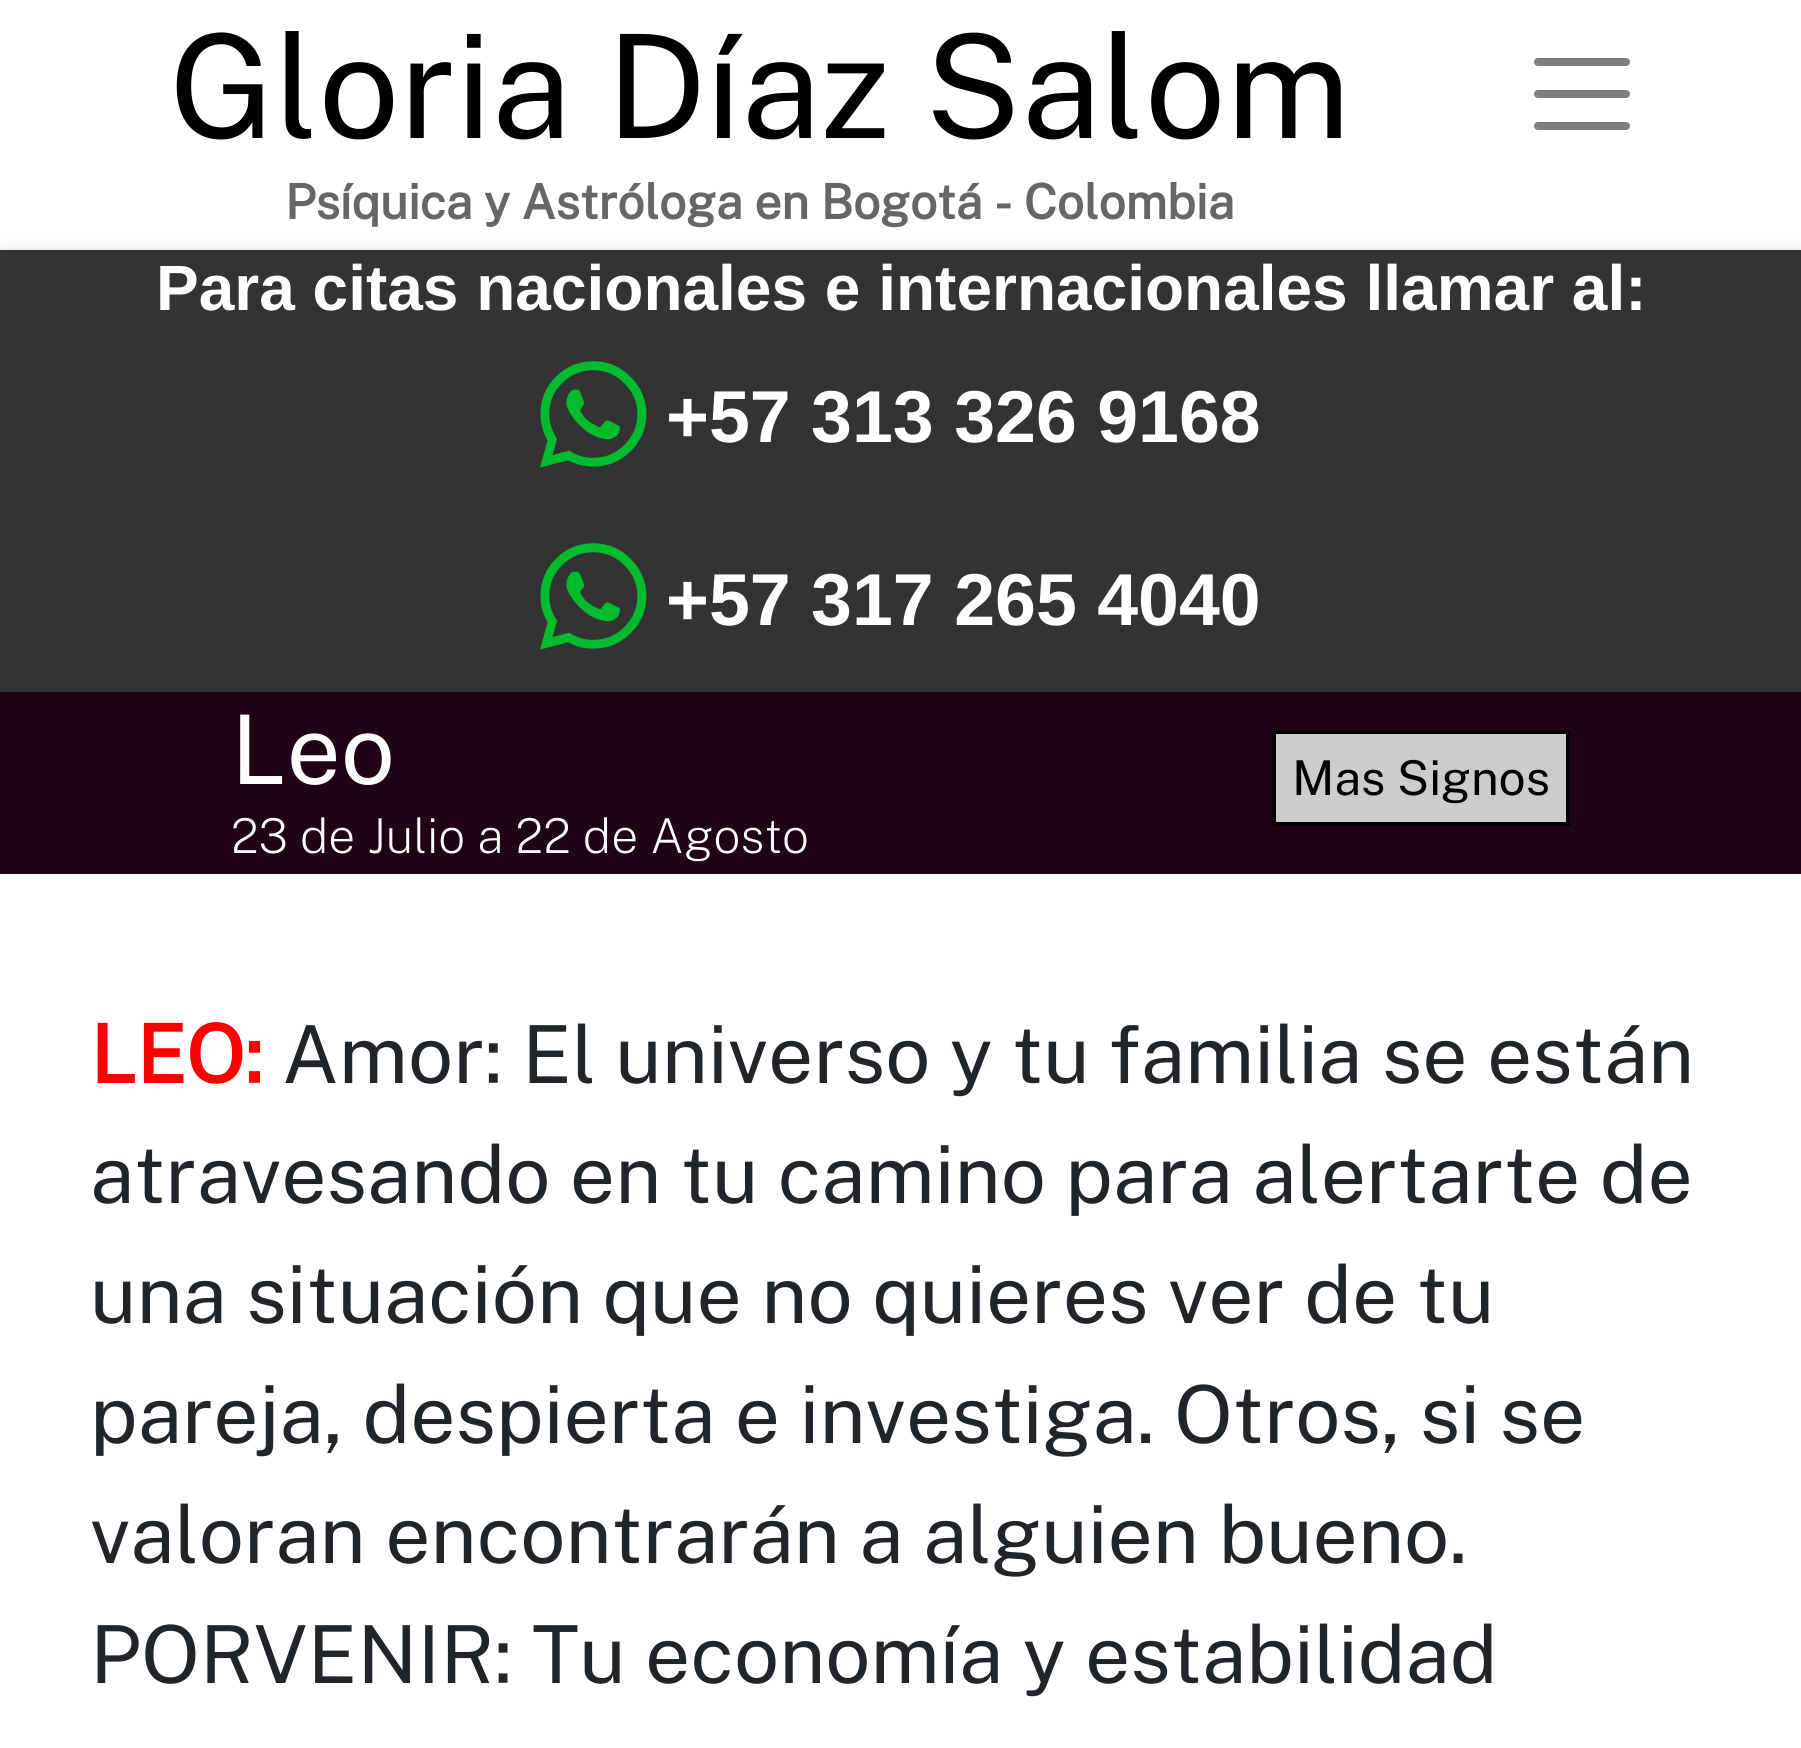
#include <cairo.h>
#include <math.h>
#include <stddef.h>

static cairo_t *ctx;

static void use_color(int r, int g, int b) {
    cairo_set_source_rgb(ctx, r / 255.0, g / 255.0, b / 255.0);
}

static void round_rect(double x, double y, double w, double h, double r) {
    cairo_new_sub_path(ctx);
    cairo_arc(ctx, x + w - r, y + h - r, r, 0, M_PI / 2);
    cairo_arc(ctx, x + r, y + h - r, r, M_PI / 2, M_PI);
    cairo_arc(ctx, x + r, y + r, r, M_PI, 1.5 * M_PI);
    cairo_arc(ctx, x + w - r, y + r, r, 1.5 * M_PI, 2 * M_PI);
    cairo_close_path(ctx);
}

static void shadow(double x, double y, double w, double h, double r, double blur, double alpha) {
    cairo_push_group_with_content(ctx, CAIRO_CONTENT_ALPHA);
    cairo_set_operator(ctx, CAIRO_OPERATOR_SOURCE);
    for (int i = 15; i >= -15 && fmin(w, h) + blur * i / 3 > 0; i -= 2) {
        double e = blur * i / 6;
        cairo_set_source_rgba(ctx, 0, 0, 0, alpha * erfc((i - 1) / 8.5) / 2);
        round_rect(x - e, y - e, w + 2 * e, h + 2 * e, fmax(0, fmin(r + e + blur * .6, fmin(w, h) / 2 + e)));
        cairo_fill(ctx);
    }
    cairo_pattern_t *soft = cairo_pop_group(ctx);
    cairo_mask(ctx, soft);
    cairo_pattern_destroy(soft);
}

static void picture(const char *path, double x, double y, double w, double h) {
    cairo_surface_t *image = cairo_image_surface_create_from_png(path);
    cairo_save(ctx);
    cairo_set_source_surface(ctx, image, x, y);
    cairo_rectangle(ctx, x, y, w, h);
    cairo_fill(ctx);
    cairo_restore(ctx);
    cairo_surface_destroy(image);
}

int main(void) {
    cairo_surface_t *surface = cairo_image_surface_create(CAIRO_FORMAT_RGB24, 1801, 1748);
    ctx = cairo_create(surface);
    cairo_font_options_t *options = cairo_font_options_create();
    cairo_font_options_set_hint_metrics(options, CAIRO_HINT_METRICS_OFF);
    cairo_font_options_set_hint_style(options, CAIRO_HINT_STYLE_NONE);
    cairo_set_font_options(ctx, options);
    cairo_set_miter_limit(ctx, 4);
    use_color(255, 255, 255);
    cairo_paint(ctx);
    cairo_select_font_face(ctx, "Public Sans", CAIRO_FONT_SLANT_NORMAL, CAIRO_FONT_WEIGHT_NORMAL);
    cairo_set_font_size(ctx, 144);
    use_color(0, 0, 0);
    cairo_move_to(ctx, 169, 138);
    cairo_show_text(ctx, "Gloria Díaz Salom");
    cairo_select_font_face(ctx, "Public Sans", CAIRO_FONT_SLANT_NORMAL, CAIRO_FONT_WEIGHT_BOLD);
    cairo_set_font_size(ctx, 48);
    use_color(102, 102, 102);
    cairo_move_to(ctx, 285, 219);
    cairo_show_text(ctx, "Psíquica y Astróloga en Bogotá - Colombia");
    cairo_new_path(ctx);
    cairo_move_to(ctx, 1538, 62);
    cairo_line_to(ctx, 1626, 62);
    cairo_move_to(ctx, 1538, 94);
    cairo_line_to(ctx, 1626, 94);
    cairo_move_to(ctx, 1538, 126);
    cairo_line_to(ctx, 1626, 126);
    use_color(128, 128, 128);
    cairo_set_line_width(ctx, 8);
    cairo_set_line_cap(ctx, CAIRO_LINE_CAP_ROUND);
    cairo_stroke(ctx);
    use_color(32, 4, 21);
    cairo_rectangle(ctx, 0, 692, 1801, 182);
    cairo_fill(ctx);
    use_color(0, 0, 0);
    shadow(0, 254, 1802, 442, 0, 10, 0.12);
    shadow(0, 254, 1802, 442, 0, 5, 0.16);
    use_color(51, 51, 51);
    cairo_rectangle(ctx, 0, 250, 1801, 442);
    cairo_fill(ctx);
    cairo_select_font_face(ctx, "Liberation Sans", CAIRO_FONT_SLANT_NORMAL, CAIRO_FONT_WEIGHT_BOLD);
    cairo_set_font_size(ctx, 64);
    use_color(255, 255, 255);
    cairo_move_to(ctx, 156, 310);
    cairo_show_text(ctx, "Para citas nacionales e internacionales llamar al:");
    picture("img1.png", 540, 361, 107, 107);
    cairo_set_font_size(ctx, 73.5);
    cairo_move_to(ctx, 666, 442);
    cairo_show_text(ctx, "+57 313 326 9168");
    picture("img1.png", 540, 543, 107, 107);
    cairo_move_to(ctx, 666, 625);
    cairo_show_text(ctx, "+57 317 265 4040");
    cairo_select_font_face(ctx, "Public Sans", CAIRO_FONT_SLANT_NORMAL, CAIRO_FONT_WEIGHT_NORMAL);
    cairo_set_font_size(ctx, 96);
    cairo_move_to(ctx, 231, 784);
    cairo_show_text(ctx, "Leo");
    cairo_select_font_face(ctx, "Public Sans ExtraLight", CAIRO_FONT_SLANT_NORMAL, CAIRO_FONT_WEIGHT_NORMAL);
    cairo_set_font_size(ctx, 48);
    cairo_move_to(ctx, 231, 853);
    cairo_show_text(ctx, "23 de Julio a 22 de Agosto");
    use_color(204, 204, 204);
    cairo_rectangle(ctx, 1274, 732, 294, 92);
    cairo_fill_preserve(ctx);
    use_color(0, 0, 0);
    cairo_set_line_width(ctx, 4);
    cairo_set_line_cap(ctx, CAIRO_LINE_CAP_BUTT);
    cairo_stroke(ctx);
    cairo_select_font_face(ctx, "Public Sans", CAIRO_FONT_SLANT_NORMAL, CAIRO_FONT_WEIGHT_NORMAL);
    cairo_move_to(ctx, 1292, 795);
    cairo_show_text(ctx, "Mas Signos");
    cairo_select_font_face(ctx, "Public Sans", CAIRO_FONT_SLANT_NORMAL, CAIRO_FONT_WEIGHT_BOLD);
    cairo_set_font_size(ctx, 80);
    use_color(255, 0, 0);
    cairo_move_to(ctx, 90, 1083);
    cairo_show_text(ctx, "LEO:");
    cairo_select_font_face(ctx, "Public Sans", CAIRO_FONT_SLANT_NORMAL, CAIRO_FONT_WEIGHT_NORMAL);
    use_color(33, 37, 41);
    cairo_move_to(ctx, 282, 1083);
    cairo_show_text(ctx, "Amor: El universo y tu familia se están");
    cairo_move_to(ctx, 90, 1203);
    cairo_show_text(ctx, "atravesando en tu camino para alertarte de");
    cairo_move_to(ctx, 90, 1323);
    cairo_show_text(ctx, "una situación que no quieres ver de tu");
    cairo_move_to(ctx, 90, 1443);
    cairo_show_text(ctx, "pareja, despierta e investiga. Otros, si se");
    cairo_move_to(ctx, 90, 1563);
    cairo_show_text(ctx, "valoran encontrarán a alguien bueno.");
    cairo_move_to(ctx, 90, 1683);
    cairo_show_text(ctx, "PORVENIR: Tu economía y estabilidad");
    cairo_surface_write_to_png(surface, "result.png");
    cairo_font_options_destroy(options);
    cairo_destroy(ctx);
    cairo_surface_destroy(surface);
    return 0;
}
